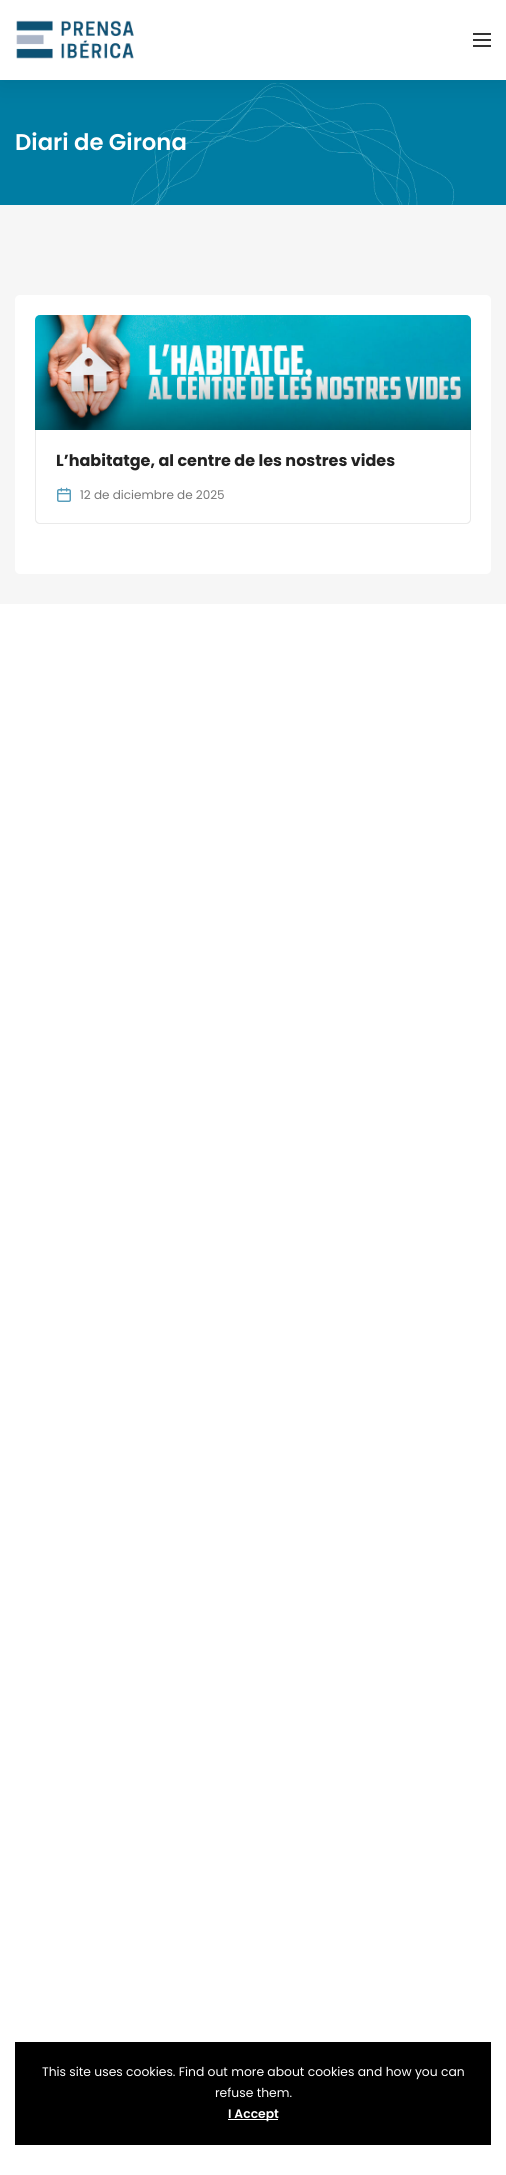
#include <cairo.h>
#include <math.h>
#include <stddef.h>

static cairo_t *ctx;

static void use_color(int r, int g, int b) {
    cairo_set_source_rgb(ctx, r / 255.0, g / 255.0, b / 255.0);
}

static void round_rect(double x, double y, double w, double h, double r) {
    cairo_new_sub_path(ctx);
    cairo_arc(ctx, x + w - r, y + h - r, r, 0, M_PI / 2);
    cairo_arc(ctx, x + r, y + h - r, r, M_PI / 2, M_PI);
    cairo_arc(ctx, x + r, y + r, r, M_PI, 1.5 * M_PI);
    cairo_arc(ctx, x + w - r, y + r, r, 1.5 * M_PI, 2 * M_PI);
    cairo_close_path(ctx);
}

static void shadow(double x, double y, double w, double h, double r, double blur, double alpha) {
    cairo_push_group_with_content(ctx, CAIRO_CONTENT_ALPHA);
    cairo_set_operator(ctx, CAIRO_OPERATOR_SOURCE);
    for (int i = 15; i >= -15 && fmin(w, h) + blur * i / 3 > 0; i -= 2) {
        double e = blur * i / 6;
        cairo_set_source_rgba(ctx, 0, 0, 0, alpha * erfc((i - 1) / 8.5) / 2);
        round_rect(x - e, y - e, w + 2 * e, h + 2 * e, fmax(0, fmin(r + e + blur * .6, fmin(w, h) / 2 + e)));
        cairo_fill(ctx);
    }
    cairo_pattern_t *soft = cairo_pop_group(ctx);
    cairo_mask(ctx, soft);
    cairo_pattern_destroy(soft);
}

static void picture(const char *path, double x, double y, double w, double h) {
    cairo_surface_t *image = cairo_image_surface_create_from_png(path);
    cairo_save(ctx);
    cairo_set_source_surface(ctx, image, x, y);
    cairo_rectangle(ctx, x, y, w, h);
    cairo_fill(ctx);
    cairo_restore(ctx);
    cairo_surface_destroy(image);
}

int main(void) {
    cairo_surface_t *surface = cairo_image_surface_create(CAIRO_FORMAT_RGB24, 506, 2175);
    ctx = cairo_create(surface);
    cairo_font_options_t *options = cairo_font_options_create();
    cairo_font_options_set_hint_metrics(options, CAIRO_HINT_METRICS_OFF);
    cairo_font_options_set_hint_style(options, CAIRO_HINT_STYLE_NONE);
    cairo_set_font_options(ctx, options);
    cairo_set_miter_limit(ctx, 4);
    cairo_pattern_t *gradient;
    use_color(255, 255, 255);
    cairo_paint(ctx);
    use_color(246, 246, 246);
    cairo_rectangle(ctx, 0, 205, 506, 399);
    cairo_fill(ctx);
    picture("img2.png", 0, 80, 506, 125);
    use_color(0, 0, 0);
    shadow(0, 1, 506, 80, 0, 15, 0.1);
    use_color(255, 255, 255);
    cairo_rectangle(ctx, 0, 0, 506, 80);
    cairo_fill(ctx);
    picture("img1.png", 16, 20, 118, 39);
    use_color(51, 51, 51);
    cairo_rectangle(ctx, 473, 33, 18, 2);
    cairo_fill(ctx);
    cairo_rectangle(ctx, 473, 39, 18, 2);
    cairo_fill(ctx);
    cairo_rectangle(ctx, 473, 45, 18, 2);
    cairo_fill(ctx);
    cairo_select_font_face(ctx, "Poppins SemiBold", CAIRO_FONT_SLANT_NORMAL, CAIRO_FONT_WEIGHT_NORMAL);
    cairo_set_font_size(ctx, 22.75);
    use_color(255, 255, 255);
    cairo_move_to(ctx, 15, 150);
    cairo_show_text(ctx, "Diari de Girona");
    round_rect(15, 295, 476, 279, 5);
    cairo_fill(ctx);
    picture("img3.png", 35, 315, 436, 115);
    gradient = cairo_pattern_create_linear(253, 315, 253, 430);
    cairo_pattern_add_color_stop_rgba(gradient, 0, 0, 0, 0, 0);
    cairo_pattern_add_color_stop_rgba(gradient, 0.5, 0, 0, 0, 0);
    cairo_pattern_add_color_stop_rgba(gradient, 1, 0, 0, 0, 0.4);
    cairo_set_source(ctx, gradient);
    cairo_pattern_destroy(gradient);
    cairo_rectangle(ctx, 35, 376, 436, 54);
    cairo_fill(ctx);
    use_color(234, 234, 234);
    cairo_set_fill_rule(ctx, CAIRO_FILL_RULE_EVEN_ODD);
    cairo_new_path(ctx);
    cairo_move_to(ctx, 35, 430);
    cairo_line_to(ctx, 471, 430);
    cairo_line_to(ctx, 471, 519);
    cairo_curve_to(ctx, 471, 522, 469, 524, 466, 524);
    cairo_line_to(ctx, 40, 524);
    cairo_curve_to(ctx, 37, 524, 35, 522, 35, 519);
    cairo_close_path(ctx);
    cairo_move_to(ctx, 36, 430);
    cairo_line_to(ctx, 470, 430);
    cairo_line_to(ctx, 470, 519);
    cairo_curve_to(ctx, 470, 521, 468, 523, 466, 523);
    cairo_line_to(ctx, 40, 523);
    cairo_curve_to(ctx, 38, 523, 36, 521, 36, 519);
    cairo_close_path(ctx);
    cairo_fill(ctx);
    cairo_select_font_face(ctx, "Poppins", CAIRO_FONT_SLANT_NORMAL, CAIRO_FONT_WEIGHT_BOLD);
    cairo_set_font_size(ctx, 16);
    use_color(34, 34, 34);
    cairo_move_to(ctx, 56, 466);
    cairo_show_text(ctx, "L’habitatge, al centre de les nostres vides");
    picture("img4.png", 57, 487, 14, 15);
    cairo_select_font_face(ctx, "Poppins", CAIRO_FONT_SLANT_NORMAL, CAIRO_FONT_WEIGHT_NORMAL);
    cairo_set_font_size(ctx, 12);
    use_color(119, 119, 119);
    cairo_move_to(ctx, 80, 499);
    cairo_show_text(ctx, "12 de diciembre de 2025");
    use_color(0, 0, 0);
    cairo_rectangle(ctx, 15, 2042, 476, 103);
    cairo_fill(ctx);
    cairo_set_font_size(ctx, 12.35);
    use_color(255, 255, 255);
    cairo_move_to(ctx, 42, 2076);
    cairo_show_text(ctx, "This site uses cookies. Find out more about cookies and how you can");
    cairo_move_to(ctx, 215, 2097);
    cairo_show_text(ctx, "refuse them.");
    cairo_rectangle(ctx, 228, 2119, 50, 1);
    cairo_fill(ctx);
    cairo_select_font_face(ctx, "Poppins SemiBold", CAIRO_FONT_SLANT_NORMAL, CAIRO_FONT_WEIGHT_NORMAL);
    cairo_move_to(ctx, 228, 2118);
    cairo_show_text(ctx, "I Accept");
    cairo_surface_write_to_png(surface, "result.png");
    cairo_font_options_destroy(options);
    cairo_destroy(ctx);
    cairo_surface_destroy(surface);
    return 0;
}
